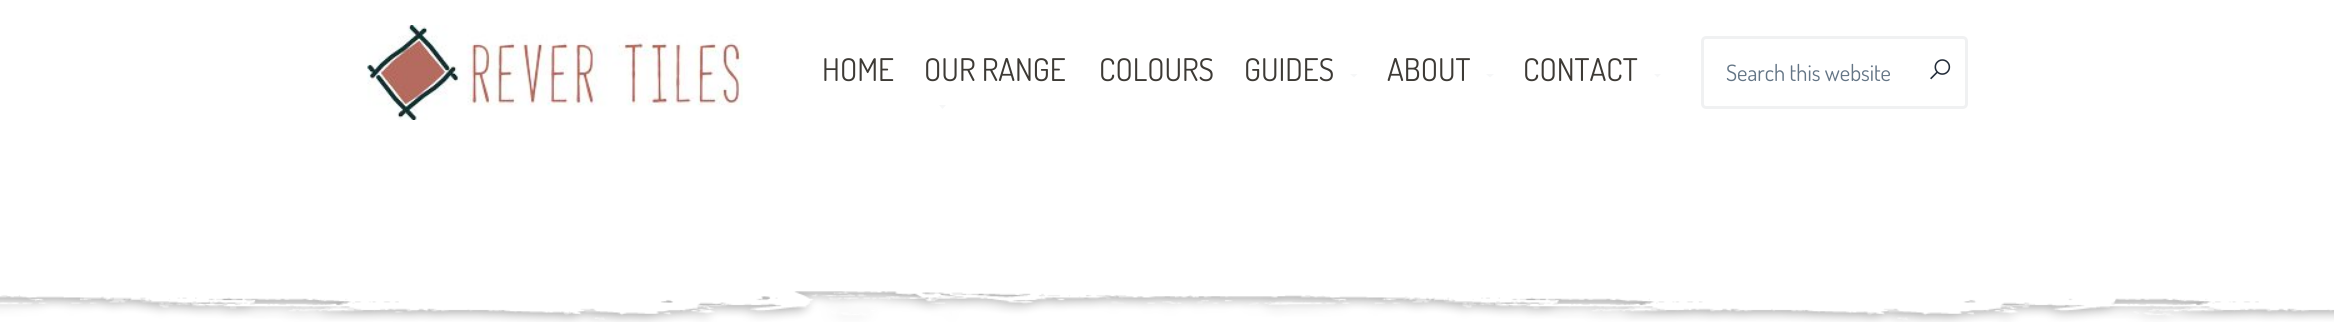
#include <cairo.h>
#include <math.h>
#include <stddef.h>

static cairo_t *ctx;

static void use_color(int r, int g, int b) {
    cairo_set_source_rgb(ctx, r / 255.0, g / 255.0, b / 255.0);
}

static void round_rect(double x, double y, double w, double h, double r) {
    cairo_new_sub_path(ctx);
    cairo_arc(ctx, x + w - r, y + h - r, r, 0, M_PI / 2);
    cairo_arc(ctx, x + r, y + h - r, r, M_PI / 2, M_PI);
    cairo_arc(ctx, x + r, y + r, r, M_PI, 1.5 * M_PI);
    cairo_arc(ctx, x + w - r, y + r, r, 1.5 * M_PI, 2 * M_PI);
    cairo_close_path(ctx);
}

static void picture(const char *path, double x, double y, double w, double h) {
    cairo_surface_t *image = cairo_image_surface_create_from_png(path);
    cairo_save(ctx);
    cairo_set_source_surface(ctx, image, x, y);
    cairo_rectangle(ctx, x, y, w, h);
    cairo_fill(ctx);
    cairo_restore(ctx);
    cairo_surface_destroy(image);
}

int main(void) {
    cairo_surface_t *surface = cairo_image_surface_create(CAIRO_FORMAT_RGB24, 2334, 322);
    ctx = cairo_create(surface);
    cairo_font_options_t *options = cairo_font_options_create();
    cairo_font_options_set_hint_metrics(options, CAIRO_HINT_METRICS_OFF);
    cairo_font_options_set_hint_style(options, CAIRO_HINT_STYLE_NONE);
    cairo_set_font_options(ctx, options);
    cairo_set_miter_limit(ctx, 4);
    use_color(255, 255, 255);
    cairo_paint(ctx);
    picture("img1.png", 367, 25, 376, 95);
    cairo_select_font_face(ctx, "Dosis", CAIRO_FONT_SLANT_NORMAL, CAIRO_FONT_WEIGHT_NORMAL);
    cairo_set_font_size(ctx, 31.25);
    use_color(61, 58, 53);
    cairo_move_to(ctx, 822, 81);
    cairo_show_text(ctx, "HOME");
    cairo_move_to(ctx, 924, 81);
    cairo_show_text(ctx, "OUR RANGE");
    use_color(246, 247, 248);
    cairo_new_path(ctx);
    cairo_move_to(ctx, 939, 105);
    cairo_line_to(ctx, 946, 105);
    cairo_line_to(ctx, 942.5, 109);
    cairo_close_path(ctx);
    cairo_fill(ctx);
    use_color(61, 58, 53);
    cairo_move_to(ctx, 1099, 81);
    cairo_show_text(ctx, "COLOURS");
    cairo_move_to(ctx, 1244, 81);
    cairo_show_text(ctx, "GUIDES");
    use_color(246, 247, 248);
    cairo_new_path(ctx);
    cairo_move_to(ctx, 1350, 74);
    cairo_line_to(ctx, 1357.5, 74);
    cairo_line_to(ctx, 1354, 77.5);
    cairo_close_path(ctx);
    cairo_fill(ctx);
    use_color(61, 58, 53);
    cairo_move_to(ctx, 1387, 81);
    cairo_show_text(ctx, "ABOUT");
    use_color(246, 247, 248);
    cairo_new_path(ctx);
    cairo_move_to(ctx, 1486, 74);
    cairo_line_to(ctx, 1494, 74);
    cairo_line_to(ctx, 1490, 77.5);
    cairo_close_path(ctx);
    cairo_fill(ctx);
    use_color(61, 58, 53);
    cairo_move_to(ctx, 1523, 81);
    cairo_show_text(ctx, "CONTACT");
    use_color(246, 247, 248);
    cairo_new_path(ctx);
    cairo_move_to(ctx, 1654, 74);
    cairo_line_to(ctx, 1661, 74);
    cairo_line_to(ctx, 1657.5, 77.5);
    cairo_close_path(ctx);
    cairo_fill(ctx);
    round_rect(1702.5, 37.5, 264, 70, 3.5);
    use_color(240, 241, 242);
    cairo_set_line_width(ctx, 3);
    cairo_stroke(ctx);
    cairo_set_font_size(ctx, 22.5);
    use_color(100, 117, 133);
    cairo_move_to(ctx, 1726, 81);
    cairo_show_text(ctx, "Search this website");
    picture("img2.png", 1930, 59, 21, 21);
    picture("img3.png", 0, 291, 2334, 31);
    cairo_surface_write_to_png(surface, "result.png");
    cairo_font_options_destroy(options);
    cairo_destroy(ctx);
    cairo_surface_destroy(surface);
    return 0;
}
